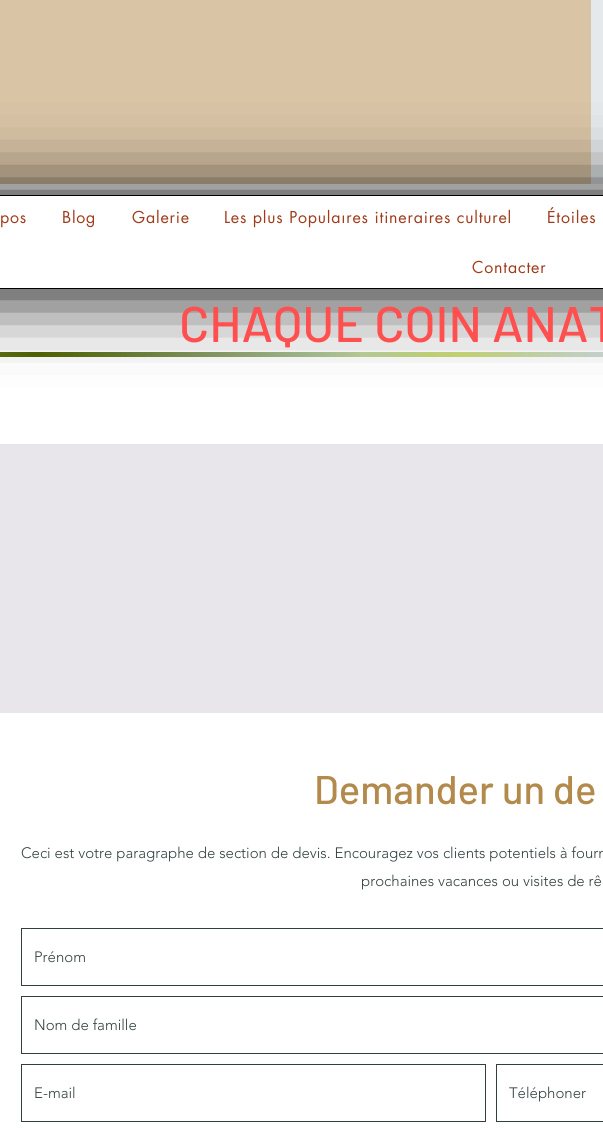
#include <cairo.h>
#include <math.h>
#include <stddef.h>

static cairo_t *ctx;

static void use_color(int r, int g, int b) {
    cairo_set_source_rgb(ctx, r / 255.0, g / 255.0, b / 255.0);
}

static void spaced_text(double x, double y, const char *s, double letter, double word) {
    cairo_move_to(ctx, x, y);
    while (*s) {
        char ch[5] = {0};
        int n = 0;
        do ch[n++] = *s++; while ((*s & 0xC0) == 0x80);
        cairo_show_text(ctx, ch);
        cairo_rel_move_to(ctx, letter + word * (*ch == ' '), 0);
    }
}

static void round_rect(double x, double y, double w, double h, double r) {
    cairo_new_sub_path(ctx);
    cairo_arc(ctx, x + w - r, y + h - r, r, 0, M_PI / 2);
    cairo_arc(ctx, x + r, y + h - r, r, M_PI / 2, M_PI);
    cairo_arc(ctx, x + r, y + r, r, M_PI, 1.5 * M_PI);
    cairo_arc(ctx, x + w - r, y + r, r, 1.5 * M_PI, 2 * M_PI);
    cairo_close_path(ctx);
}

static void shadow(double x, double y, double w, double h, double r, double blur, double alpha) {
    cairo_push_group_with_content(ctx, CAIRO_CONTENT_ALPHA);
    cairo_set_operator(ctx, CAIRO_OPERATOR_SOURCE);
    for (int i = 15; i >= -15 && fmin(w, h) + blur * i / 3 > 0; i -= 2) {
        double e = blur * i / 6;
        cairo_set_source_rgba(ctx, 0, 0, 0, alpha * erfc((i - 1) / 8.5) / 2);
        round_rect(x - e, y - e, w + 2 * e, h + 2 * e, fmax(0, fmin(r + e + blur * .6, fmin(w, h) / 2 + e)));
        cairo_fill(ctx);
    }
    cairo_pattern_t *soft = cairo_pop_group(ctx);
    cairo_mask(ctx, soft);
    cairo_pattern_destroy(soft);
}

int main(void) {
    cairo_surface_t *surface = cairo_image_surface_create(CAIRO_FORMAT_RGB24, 603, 1128);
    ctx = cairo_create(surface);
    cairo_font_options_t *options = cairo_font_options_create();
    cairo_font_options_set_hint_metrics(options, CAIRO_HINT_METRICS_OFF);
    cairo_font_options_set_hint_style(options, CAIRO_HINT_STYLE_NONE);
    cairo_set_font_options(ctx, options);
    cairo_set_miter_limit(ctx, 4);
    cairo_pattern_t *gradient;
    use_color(255, 255, 255);
    cairo_paint(ctx);
    use_color(217, 196, 166);
    cairo_rectangle(ctx, 0, 0, 591, 184);
    cairo_fill(ctx);
    use_color(230, 233, 235);
    cairo_rectangle(ctx, 591, 0, 12, 184);
    cairo_fill(ctx);
    cairo_save(ctx);
    cairo_set_fill_rule(ctx, CAIRO_FILL_RULE_EVEN_ODD);
    cairo_new_path(ctx);
    cairo_move_to(ctx, 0, 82);
    cairo_line_to(ctx, 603, 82);
    cairo_line_to(ctx, 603, 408);
    cairo_line_to(ctx, 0, 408);
    cairo_close_path(ctx);
    cairo_move_to(ctx, -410, 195);
    cairo_line_to(ctx, 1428, 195);
    cairo_line_to(ctx, 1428, 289);
    cairo_line_to(ctx, -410, 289);
    cairo_close_path(ctx);
    cairo_clip(ctx);
    use_color(0, 0, 0);
    shadow(-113, 196, 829, 98, 0, 37.5, 1);
    cairo_restore(ctx);
    cairo_rectangle(ctx, -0.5, 195.5, 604, 93);
    use_color(0, 0, 0);
    cairo_set_line_width(ctx, 1);
    cairo_stroke(ctx);
    cairo_select_font_face(ctx, "futura", CAIRO_FONT_SLANT_NORMAL, CAIRO_FONT_WEIGHT_NORMAL);
    cairo_set_font_size(ctx, 16);
    use_color(158, 59, 27);
    spaced_text(0, 223, "pos", 0.8, 0);
    spaced_text(62, 223, "Blog", 0.8, 0);
    spaced_text(132, 223, "Galerie", 0.8, 0);
    spaced_text(224, 223, "Les plus Populaıres itineraires culturel", 0.8, 0);
    spaced_text(547, 223, "Étoiles", 0.8, 0);
    spaced_text(472, 273, "Contacter", 0.8, 0);
    cairo_select_font_face(ctx, "Barlow Medium", CAIRO_FONT_SLANT_NORMAL, CAIRO_FONT_WEIGHT_NORMAL);
    cairo_set_font_size(ctx, 50);
    use_color(255, 79, 79);
    cairo_move_to(ctx, 179, 342);
    cairo_show_text(ctx, "CHAQUE COIN ANAT");
    gradient = cairo_pattern_create_radial(479, 354, 0, 479, 354, 501);
    cairo_pattern_add_color_stop_rgba(gradient, 0, 1, 1, 1, 1);
    cairo_pattern_add_color_stop_rgba(gradient, 1, 1, 1, 1, 0);
    cairo_set_source(ctx, gradient);
    cairo_pattern_destroy(gradient);
    cairo_rectangle(ctx, 64, 352, 539, 5);
    cairo_fill(ctx);
    gradient = cairo_pattern_create_radial(501, 356, 0, 501, 356, 501);
    cairo_pattern_add_color_stop_rgba(gradient, 0, 0.576, 0.765, 1, 1);
    cairo_pattern_add_color_stop_rgba(gradient, 0.7, 0.576, 0.765, 1, 0);
    cairo_set_source(ctx, gradient);
    cairo_pattern_destroy(gradient);
    cairo_rectangle(ctx, 158, 352, 445, 5);
    cairo_fill(ctx);
    gradient = cairo_pattern_create_radial(456, 353, 0, 456, 353, 524);
    cairo_pattern_add_color_stop_rgba(gradient, 0, 0.839, 0.871, 0.282, 0.99);
    cairo_pattern_add_color_stop_rgba(gradient, 0.5, 0.839, 0.871, 0.282, 0);
    cairo_set_source(ctx, gradient);
    cairo_pattern_destroy(gradient);
    cairo_rectangle(ctx, 200, 352, 403, 5);
    cairo_fill(ctx);
    gradient = cairo_pattern_create_radial(42, 357, 0, 42, 357, 938);
    cairo_pattern_add_color_stop_rgba(gradient, 0, 0.592, 0.706, 0.616, 1);
    cairo_pattern_add_color_stop_rgba(gradient, 0.65, 0.592, 0.706, 0.616, 0);
    cairo_set_source(ctx, gradient);
    cairo_pattern_destroy(gradient);
    cairo_rectangle(ctx, 0, 352, 603, 5);
    cairo_fill(ctx);
    gradient = cairo_pattern_create_radial(933, 357, 0, 933, 357, 933);
    cairo_pattern_add_color_stop_rgba(gradient, 0, 0.788, 0.776, 1, 1);
    cairo_pattern_add_color_stop_rgba(gradient, 0.55, 0.788, 0.776, 1, 0);
    cairo_set_source(ctx, gradient);
    cairo_pattern_destroy(gradient);
    cairo_rectangle(ctx, 431, 352, 172, 5);
    cairo_fill(ctx);
    gradient = cairo_pattern_create_radial(911, 352, 0, 911, 352, 911);
    cairo_pattern_add_color_stop_rgba(gradient, 0, 0.98, 0.667, 0.388, 1);
    cairo_pattern_add_color_stop_rgba(gradient, 0.35, 0.98, 0.667, 0.388, 0);
    cairo_set_source(ctx, gradient);
    cairo_pattern_destroy(gradient);
    cairo_rectangle(ctx, 599, 352, 4, 5);
    cairo_fill(ctx);
    gradient = cairo_pattern_create_radial(36, 352, 0, 36, 352, 944);
    cairo_pattern_add_color_stop_rgba(gradient, 0, 0.302, 0.376, 0.004, 1);
    cairo_pattern_add_color_stop_rgba(gradient, 0.35, 0.302, 0.376, 0.004, 0);
    cairo_set_source(ctx, gradient);
    cairo_pattern_destroy(gradient);
    cairo_rectangle(ctx, 0, 352, 360, 5);
    cairo_fill(ctx);
    use_color(233, 230, 235);
    cairo_rectangle(ctx, 0, 444, 603, 269);
    cairo_fill(ctx);
    cairo_set_font_size(ctx, 40);
    use_color(179, 138, 76);
    cairo_move_to(ctx, 314, 804);
    cairo_show_text(ctx, "Demander un de");
    cairo_select_font_face(ctx, "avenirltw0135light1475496 Light", CAIRO_FONT_SLANT_NORMAL, CAIRO_FONT_WEIGHT_NORMAL);
    cairo_set_font_size(ctx, 15);
    use_color(49, 64, 63);
    cairo_move_to(ctx, 21, 858);
    cairo_show_text(ctx, "Ceci est votre paragraphe de section de devis. Encouragez vos clients potentiels à fourn");
    cairo_move_to(ctx, 361, 886);
    cairo_show_text(ctx, "prochaines vacances ou visites de rê");
    cairo_rectangle(ctx, 21.5, 928.5, 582, 57);
    cairo_stroke(ctx);
    cairo_move_to(ctx, 34, 962);
    cairo_show_text(ctx, "Prénom");
    cairo_rectangle(ctx, 21.5, 996.5, 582, 57);
    cairo_stroke(ctx);
    cairo_move_to(ctx, 34, 1030);
    cairo_show_text(ctx, "Nom de famille");
    cairo_rectangle(ctx, 21.5, 1064.5, 464, 57);
    cairo_stroke(ctx);
    cairo_move_to(ctx, 34, 1098);
    cairo_show_text(ctx, "E-mail");
    cairo_rectangle(ctx, 496.5, 1064.5, 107, 57);
    cairo_stroke(ctx);
    cairo_move_to(ctx, 509, 1098);
    cairo_show_text(ctx, "Téléphoner");
    cairo_surface_write_to_png(surface, "result.png");
    cairo_font_options_destroy(options);
    cairo_destroy(ctx);
    cairo_surface_destroy(surface);
    return 0;
}
